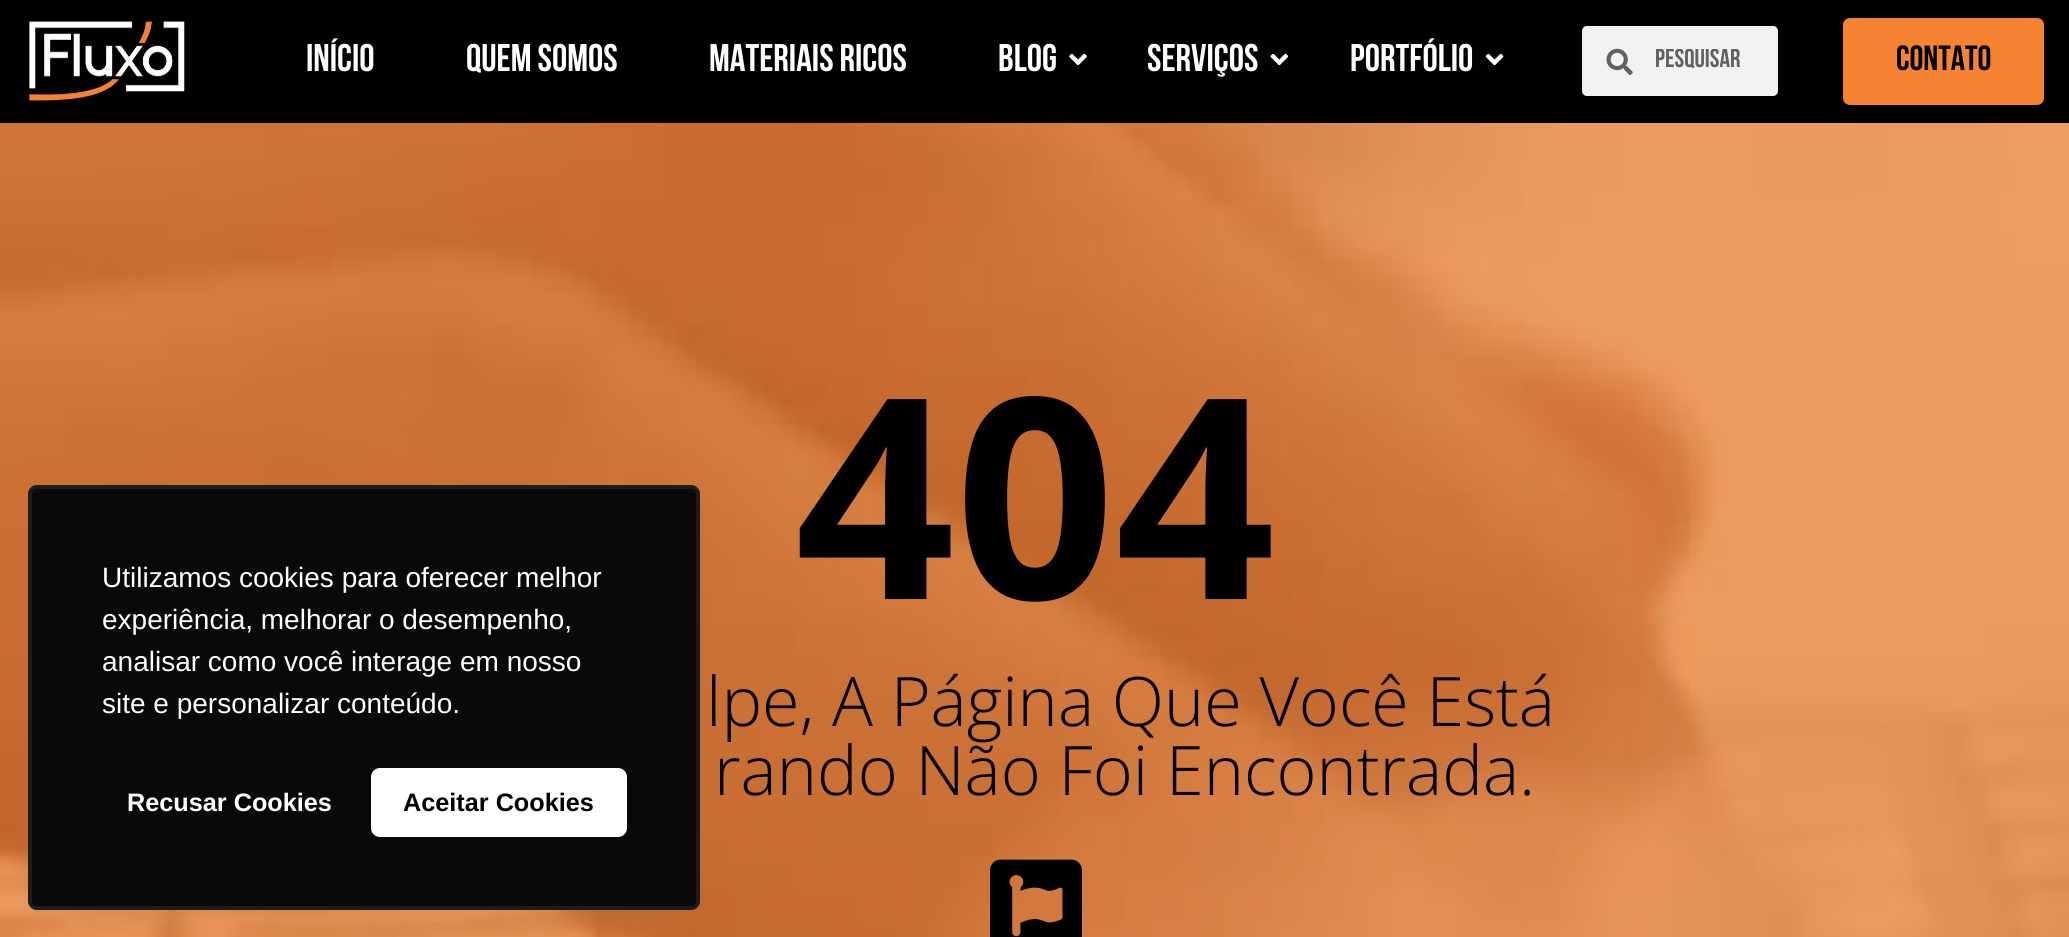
#include <cairo.h>
#include <math.h>
#include <stddef.h>

static cairo_t *ctx;

static void use_color(int r, int g, int b) {
    cairo_set_source_rgb(ctx, r / 255.0, g / 255.0, b / 255.0);
}

static void round_rect(double x, double y, double w, double h, double r) {
    cairo_new_sub_path(ctx);
    cairo_arc(ctx, x + w - r, y + h - r, r, 0, M_PI / 2);
    cairo_arc(ctx, x + r, y + h - r, r, M_PI / 2, M_PI);
    cairo_arc(ctx, x + r, y + r, r, M_PI, 1.5 * M_PI);
    cairo_arc(ctx, x + w - r, y + r, r, 1.5 * M_PI, 2 * M_PI);
    cairo_close_path(ctx);
}

static void shadow(double x, double y, double w, double h, double r, double blur, double alpha) {
    cairo_push_group_with_content(ctx, CAIRO_CONTENT_ALPHA);
    cairo_set_operator(ctx, CAIRO_OPERATOR_SOURCE);
    for (int i = 15; i >= -15 && fmin(w, h) + blur * i / 3 > 0; i -= 2) {
        double e = blur * i / 6;
        cairo_set_source_rgba(ctx, 0, 0, 0, alpha * erfc((i - 1) / 8.5) / 2);
        round_rect(x - e, y - e, w + 2 * e, h + 2 * e, fmax(0, fmin(r + e + blur * .6, fmin(w, h) / 2 + e)));
        cairo_fill(ctx);
    }
    cairo_pattern_t *soft = cairo_pop_group(ctx);
    cairo_mask(ctx, soft);
    cairo_pattern_destroy(soft);
}

static void picture(const char *path, double x, double y, double w, double h) {
    cairo_surface_t *image = cairo_image_surface_create_from_png(path);
    cairo_save(ctx);
    cairo_set_source_surface(ctx, image, x, y);
    cairo_rectangle(ctx, x, y, w, h);
    cairo_fill(ctx);
    cairo_restore(ctx);
    cairo_surface_destroy(image);
}

int main(void) {
    cairo_surface_t *surface = cairo_image_surface_create(CAIRO_FORMAT_RGB24, 2069, 937);
    ctx = cairo_create(surface);
    cairo_font_options_t *options = cairo_font_options_create();
    cairo_font_options_set_hint_metrics(options, CAIRO_HINT_METRICS_OFF);
    cairo_font_options_set_hint_style(options, CAIRO_HINT_STYLE_NONE);
    cairo_set_font_options(ctx, options);
    cairo_set_miter_limit(ctx, 4);
    use_color(255, 255, 255);
    cairo_paint(ctx);
    use_color(1, 1, 1);
    cairo_rectangle(ctx, 0, 0, 2069, 123);
    cairo_fill(ctx);
    picture("img1.png", 29, 21, 156, 80);
    cairo_select_font_face(ctx, "Bebas Neue", CAIRO_FONT_SLANT_NORMAL, CAIRO_FONT_WEIGHT_BOLD);
    cairo_set_font_size(ctx, 38.5);
    use_color(255, 255, 255);
    cairo_move_to(ctx, 306, 71);
    cairo_show_text(ctx, "Início");
    cairo_move_to(ctx, 466, 71);
    cairo_show_text(ctx, "Quem Somos");
    cairo_move_to(ctx, 709, 71);
    cairo_show_text(ctx, "Materiais Ricos");
    cairo_move_to(ctx, 998, 71);
    cairo_show_text(ctx, "Blog");
    picture("img2.png", 1069, 53, 18, 13);
    cairo_move_to(ctx, 1147, 71);
    cairo_show_text(ctx, "Serviços");
    picture("img3.png", 1270, 53, 18, 13);
    cairo_move_to(ctx, 1350, 71);
    cairo_show_text(ctx, "Portfólio");
    picture("img4.png", 1485, 53, 19, 13);
    use_color(241, 242, 243);
    round_rect(1582, 26, 196, 70, 5);
    cairo_fill(ctx);
    picture("img5.png", 1606, 48, 27, 27);
    cairo_save(ctx);
    cairo_rectangle(ctx, 1656, 49, 99, 26);
    cairo_clip(ctx);
    cairo_set_font_size(ctx, 26);
    use_color(96, 97, 97);
    cairo_move_to(ctx, 1655, 67);
    cairo_show_text(ctx, "Pesquisar");
    cairo_restore(ctx);
    use_color(245, 131, 50);
    round_rect(1843, 18, 201, 87, 7);
    cairo_fill(ctx);
    cairo_set_font_size(ctx, 35);
    use_color(1, 1, 1);
    cairo_move_to(ctx, 1896, 70);
    cairo_show_text(ctx, "Contato");
    picture("img6.png", 0, 123, 2069, 814);
    cairo_select_font_face(ctx, "Open Sans", CAIRO_FONT_SLANT_NORMAL, CAIRO_FONT_WEIGHT_BOLD);
    cairo_set_font_size(ctx, 280);
    cairo_move_to(ctx, 795, 599);
    cairo_show_text(ctx, "404");
    cairo_select_font_face(ctx, "Open Sans Light", CAIRO_FONT_SLANT_NORMAL, CAIRO_FONT_WEIGHT_NORMAL);
    cairo_set_font_size(ctx, 68.25);
    cairo_move_to(ctx, 706, 726);
    cairo_show_text(ctx, "lpe, A Página Que Você Está");
    cairo_move_to(ctx, 714, 795);
    cairo_show_text(ctx, "rando Não Foi Encontrada.");
    picture("img7.png", 990, 859, 92, 78);
    use_color(99, 110, 124);
    shadow(30, 488, 672, 426, 9, 3.5, 0.1);
    use_color(9, 9, 9);
    round_rect(28, 485, 672, 425, 9);
    cairo_fill(ctx);
    round_rect(30, 487, 668, 421, 7);
    cairo_set_source_rgba(ctx, 0.388, 0.431, 0.486, 0.2);
    cairo_set_line_width(ctx, 4);
    cairo_stroke(ctx);
    cairo_select_font_face(ctx, "Liberation Sans", CAIRO_FONT_SLANT_NORMAL, CAIRO_FONT_WEIGHT_NORMAL);
    cairo_set_font_size(ctx, 28);
    use_color(255, 255, 255);
    cairo_move_to(ctx, 102, 587);
    cairo_show_text(ctx, "Utilizamos cookies para oferecer melhor");
    cairo_move_to(ctx, 102, 629);
    cairo_show_text(ctx, "experiência, melhorar o desempenho,");
    cairo_move_to(ctx, 102, 671);
    cairo_show_text(ctx, "analisar como você interage em nosso");
    cairo_move_to(ctx, 102, 713);
    cairo_show_text(ctx, "site e personalizar conteúdo.");
    cairo_select_font_face(ctx, "Liberation Sans", CAIRO_FONT_SLANT_NORMAL, CAIRO_FONT_WEIGHT_BOLD);
    cairo_set_font_size(ctx, 25.25);
    cairo_move_to(ctx, 127, 811);
    cairo_show_text(ctx, "Recusar Cookies");
    round_rect(371, 768, 256, 69, 9);
    cairo_fill(ctx);
    use_color(1, 1, 1);
    cairo_move_to(ctx, 403, 811);
    cairo_show_text(ctx, "Aceitar Cookies");
    cairo_surface_write_to_png(surface, "result.png");
    cairo_font_options_destroy(options);
    cairo_destroy(ctx);
    cairo_surface_destroy(surface);
    return 0;
}
